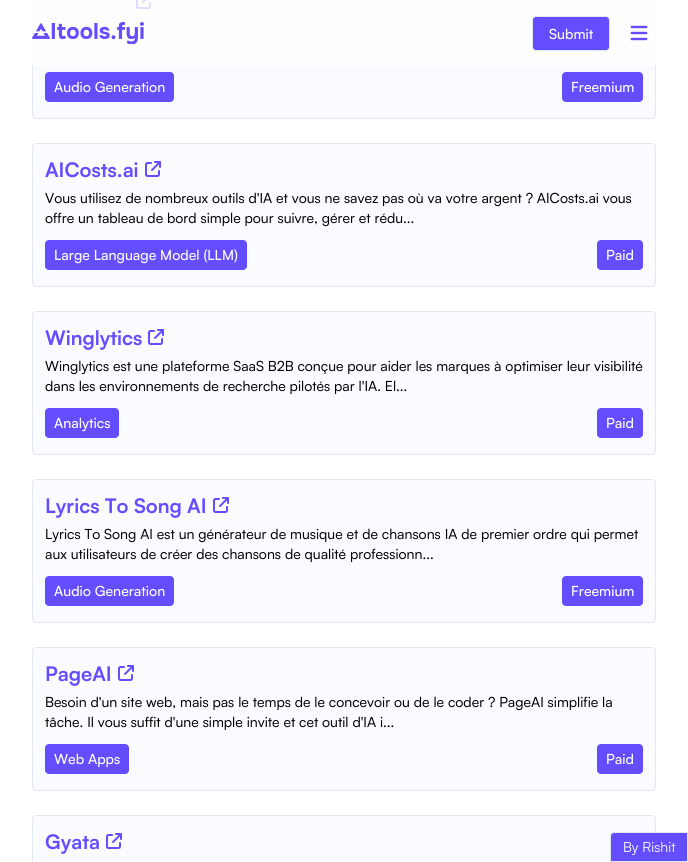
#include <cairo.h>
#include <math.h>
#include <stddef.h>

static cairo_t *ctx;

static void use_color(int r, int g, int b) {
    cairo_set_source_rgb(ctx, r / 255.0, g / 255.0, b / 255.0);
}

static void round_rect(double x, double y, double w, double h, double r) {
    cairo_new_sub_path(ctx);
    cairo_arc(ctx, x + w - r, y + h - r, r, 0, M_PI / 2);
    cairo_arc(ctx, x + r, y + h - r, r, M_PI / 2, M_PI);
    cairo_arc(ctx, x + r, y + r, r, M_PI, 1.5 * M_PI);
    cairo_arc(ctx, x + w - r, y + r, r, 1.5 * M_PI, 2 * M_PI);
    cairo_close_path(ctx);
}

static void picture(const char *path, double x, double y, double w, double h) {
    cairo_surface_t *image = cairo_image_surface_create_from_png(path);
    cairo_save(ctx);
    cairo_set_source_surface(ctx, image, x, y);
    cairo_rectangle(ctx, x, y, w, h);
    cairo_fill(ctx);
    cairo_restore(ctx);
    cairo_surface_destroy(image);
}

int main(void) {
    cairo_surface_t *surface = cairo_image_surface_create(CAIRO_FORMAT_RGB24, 688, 862);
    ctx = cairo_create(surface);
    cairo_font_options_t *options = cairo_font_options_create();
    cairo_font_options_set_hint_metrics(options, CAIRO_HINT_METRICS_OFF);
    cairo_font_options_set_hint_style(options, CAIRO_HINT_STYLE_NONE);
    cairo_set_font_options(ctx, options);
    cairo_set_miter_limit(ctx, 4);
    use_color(255, 255, 255);
    cairo_paint(ctx);
    use_color(250, 251, 255);
    round_rect(32.5, -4.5, 623, 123, 3.5);
    cairo_fill_preserve(ctx);
    use_color(226, 232, 240);
    cairo_set_line_width(ctx, 1);
    cairo_stroke(ctx);
    picture("img3.png", 136, 0, 15, 9);
    cairo_set_source_rgba(ctx, 1, 1, 1, 0.8);
    cairo_rectangle(ctx, 32, 0, 624, 66);
    cairo_fill(ctx);
    picture("img1.png", 32, 22, 112, 22);
    use_color(100, 77, 255);
    round_rect(532.5, 16.5, 77, 34, 3.5);
    cairo_fill_preserve(ctx);
    use_color(226, 232, 240);
    cairo_stroke(ctx);
    cairo_select_font_face(ctx, "Satoshi Medium", CAIRO_FONT_SLANT_NORMAL, CAIRO_FONT_WEIGHT_NORMAL);
    cairo_set_font_size(ctx, 14);
    use_color(255, 255, 255);
    cairo_move_to(ctx, 549, 39);
    cairo_show_text(ctx, "Submit");
    picture("img2.png", 630, 25, 18, 16);
    use_color(100, 77, 255);
    round_rect(45, 72, 129, 30, 4);
    cairo_fill(ctx);
    use_color(255, 255, 255);
    cairo_move_to(ctx, 54, 92);
    cairo_show_text(ctx, "Audio Generation");
    use_color(100, 77, 255);
    round_rect(562, 72, 81, 30, 4);
    cairo_fill(ctx);
    use_color(255, 255, 255);
    cairo_move_to(ctx, 571, 92);
    cairo_show_text(ctx, "Freemium");
    use_color(250, 251, 255);
    round_rect(32.5, 143.5, 623, 143, 3.5);
    cairo_fill_preserve(ctx);
    use_color(226, 232, 240);
    cairo_stroke(ctx);
    cairo_select_font_face(ctx, "Satoshi", CAIRO_FONT_SLANT_NORMAL, CAIRO_FONT_WEIGHT_BOLD);
    cairo_set_font_size(ctx, 20);
    use_color(100, 77, 255);
    cairo_move_to(ctx, 45, 177);
    cairo_show_text(ctx, "AICosts.ai");
    picture("img4.png", 145, 161, 16, 16);
    cairo_select_font_face(ctx, "Satoshi", CAIRO_FONT_SLANT_NORMAL, CAIRO_FONT_WEIGHT_NORMAL);
    cairo_set_font_size(ctx, 14);
    use_color(0, 0, 0);
    cairo_move_to(ctx, 45, 203);
    cairo_show_text(ctx, "Vous utilisez de nombreux outils d'IA et vous ne savez pas où va votre argent ? AICosts.ai vous");
    cairo_move_to(ctx, 45, 223);
    cairo_show_text(ctx, "offre un tableau de bord simple pour suivre, gérer et rédu...");
    use_color(100, 77, 255);
    round_rect(45, 240, 202, 30, 4);
    cairo_fill(ctx);
    cairo_select_font_face(ctx, "Satoshi Medium", CAIRO_FONT_SLANT_NORMAL, CAIRO_FONT_WEIGHT_NORMAL);
    use_color(255, 255, 255);
    cairo_move_to(ctx, 54, 260);
    cairo_show_text(ctx, "Large Language Model (LLM)");
    use_color(100, 77, 255);
    round_rect(597, 240, 46, 30, 4);
    cairo_fill(ctx);
    use_color(255, 255, 255);
    cairo_move_to(ctx, 606, 260);
    cairo_show_text(ctx, "Paid");
    use_color(250, 251, 255);
    round_rect(32.5, 311.5, 623, 143, 3.5);
    cairo_fill_preserve(ctx);
    use_color(226, 232, 240);
    cairo_stroke(ctx);
    cairo_select_font_face(ctx, "Satoshi", CAIRO_FONT_SLANT_NORMAL, CAIRO_FONT_WEIGHT_BOLD);
    cairo_set_font_size(ctx, 20);
    use_color(100, 77, 255);
    cairo_move_to(ctx, 45, 345);
    cairo_show_text(ctx, "Winglytics");
    picture("img4.png", 148, 329, 16, 16);
    cairo_select_font_face(ctx, "Satoshi", CAIRO_FONT_SLANT_NORMAL, CAIRO_FONT_WEIGHT_NORMAL);
    cairo_set_font_size(ctx, 14);
    use_color(0, 0, 0);
    cairo_move_to(ctx, 45, 371);
    cairo_show_text(ctx, "Winglytics est une plateforme SaaS B2B conçue pour aider les marques à optimiser leur visibilité");
    cairo_move_to(ctx, 45, 391);
    cairo_show_text(ctx, "dans les environnements de recherche pilotés par l'IA. El...");
    use_color(100, 77, 255);
    round_rect(45, 408, 74, 30, 4);
    cairo_fill(ctx);
    cairo_select_font_face(ctx, "Satoshi Medium", CAIRO_FONT_SLANT_NORMAL, CAIRO_FONT_WEIGHT_NORMAL);
    use_color(255, 255, 255);
    cairo_move_to(ctx, 54, 428);
    cairo_show_text(ctx, "Analytics");
    use_color(100, 77, 255);
    round_rect(597, 408, 46, 30, 4);
    cairo_fill(ctx);
    use_color(255, 255, 255);
    cairo_move_to(ctx, 606, 428);
    cairo_show_text(ctx, "Paid");
    use_color(250, 251, 255);
    round_rect(32.5, 479.5, 623, 143, 3.5);
    cairo_fill_preserve(ctx);
    use_color(226, 232, 240);
    cairo_stroke(ctx);
    cairo_select_font_face(ctx, "Satoshi", CAIRO_FONT_SLANT_NORMAL, CAIRO_FONT_WEIGHT_BOLD);
    cairo_set_font_size(ctx, 20);
    use_color(100, 77, 255);
    cairo_move_to(ctx, 45, 513);
    cairo_show_text(ctx, "Lyrics To Song AI");
    picture("img4.png", 213, 497, 16, 16);
    cairo_select_font_face(ctx, "Satoshi", CAIRO_FONT_SLANT_NORMAL, CAIRO_FONT_WEIGHT_NORMAL);
    cairo_set_font_size(ctx, 14);
    use_color(0, 0, 0);
    cairo_move_to(ctx, 45, 539);
    cairo_show_text(ctx, "Lyrics To Song AI est un générateur de musique et de chansons IA de premier ordre qui permet");
    cairo_move_to(ctx, 45, 559);
    cairo_show_text(ctx, "aux utilisateurs de créer des chansons de qualité professionn...");
    use_color(100, 77, 255);
    round_rect(45, 576, 129, 30, 4);
    cairo_fill(ctx);
    cairo_select_font_face(ctx, "Satoshi Medium", CAIRO_FONT_SLANT_NORMAL, CAIRO_FONT_WEIGHT_NORMAL);
    use_color(255, 255, 255);
    cairo_move_to(ctx, 54, 596);
    cairo_show_text(ctx, "Audio Generation");
    use_color(100, 77, 255);
    round_rect(562, 576, 81, 30, 4);
    cairo_fill(ctx);
    use_color(255, 255, 255);
    cairo_move_to(ctx, 571, 596);
    cairo_show_text(ctx, "Freemium");
    use_color(250, 251, 255);
    round_rect(32.5, 647.5, 623, 143, 3.5);
    cairo_fill_preserve(ctx);
    use_color(226, 232, 240);
    cairo_stroke(ctx);
    cairo_select_font_face(ctx, "Satoshi", CAIRO_FONT_SLANT_NORMAL, CAIRO_FONT_WEIGHT_BOLD);
    cairo_set_font_size(ctx, 20);
    use_color(100, 77, 255);
    cairo_move_to(ctx, 45, 681);
    cairo_show_text(ctx, "PageAI");
    picture("img4.png", 118, 665, 16, 16);
    cairo_select_font_face(ctx, "Satoshi", CAIRO_FONT_SLANT_NORMAL, CAIRO_FONT_WEIGHT_NORMAL);
    cairo_set_font_size(ctx, 14);
    use_color(0, 0, 0);
    cairo_move_to(ctx, 45, 707);
    cairo_show_text(ctx, "Besoin d'un site web, mais pas le temps de le concevoir ou de le coder ? PageAI simplifie la");
    cairo_move_to(ctx, 45, 727);
    cairo_show_text(ctx, "tâche. Il vous suffit d'une simple invite et cet outil d'IA i...");
    use_color(100, 77, 255);
    round_rect(45, 744, 84, 30, 4);
    cairo_fill(ctx);
    cairo_select_font_face(ctx, "Satoshi Medium", CAIRO_FONT_SLANT_NORMAL, CAIRO_FONT_WEIGHT_NORMAL);
    use_color(255, 255, 255);
    cairo_move_to(ctx, 54, 764);
    cairo_show_text(ctx, "Web Apps");
    use_color(100, 77, 255);
    round_rect(597, 744, 46, 30, 4);
    cairo_fill(ctx);
    use_color(255, 255, 255);
    cairo_move_to(ctx, 606, 764);
    cairo_show_text(ctx, "Paid");
    use_color(250, 251, 255);
    round_rect(32.5, 815.5, 623, 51, 3.5);
    cairo_fill_preserve(ctx);
    use_color(226, 232, 240);
    cairo_stroke(ctx);
    cairo_select_font_face(ctx, "Satoshi", CAIRO_FONT_SLANT_NORMAL, CAIRO_FONT_WEIGHT_BOLD);
    cairo_set_font_size(ctx, 20);
    use_color(100, 77, 255);
    cairo_move_to(ctx, 45, 849);
    cairo_show_text(ctx, "Gyata");
    picture("img4.png", 106, 833, 16, 16);
    cairo_new_path(ctx);
    cairo_move_to(ctx, 614, 832.5);
    cairo_line_to(ctx, 687.5, 832.5);
    cairo_line_to(ctx, 687.5, 861.5);
    cairo_line_to(ctx, 610.5, 861.5);
    cairo_line_to(ctx, 610.5, 836);
    cairo_curve_to(ctx, 610.5, 834, 612, 832.5, 614, 832.5);
    cairo_close_path(ctx);
    cairo_fill_preserve(ctx);
    use_color(226, 232, 240);
    cairo_stroke(ctx);
    cairo_select_font_face(ctx, "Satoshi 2", CAIRO_FONT_SLANT_NORMAL, CAIRO_FONT_WEIGHT_NORMAL);
    cairo_set_font_size(ctx, 14);
    use_color(255, 255, 255);
    cairo_move_to(ctx, 623, 852);
    cairo_show_text(ctx, "By Rishit");
    cairo_surface_write_to_png(surface, "result.png");
    cairo_font_options_destroy(options);
    cairo_destroy(ctx);
    cairo_surface_destroy(surface);
    return 0;
}
